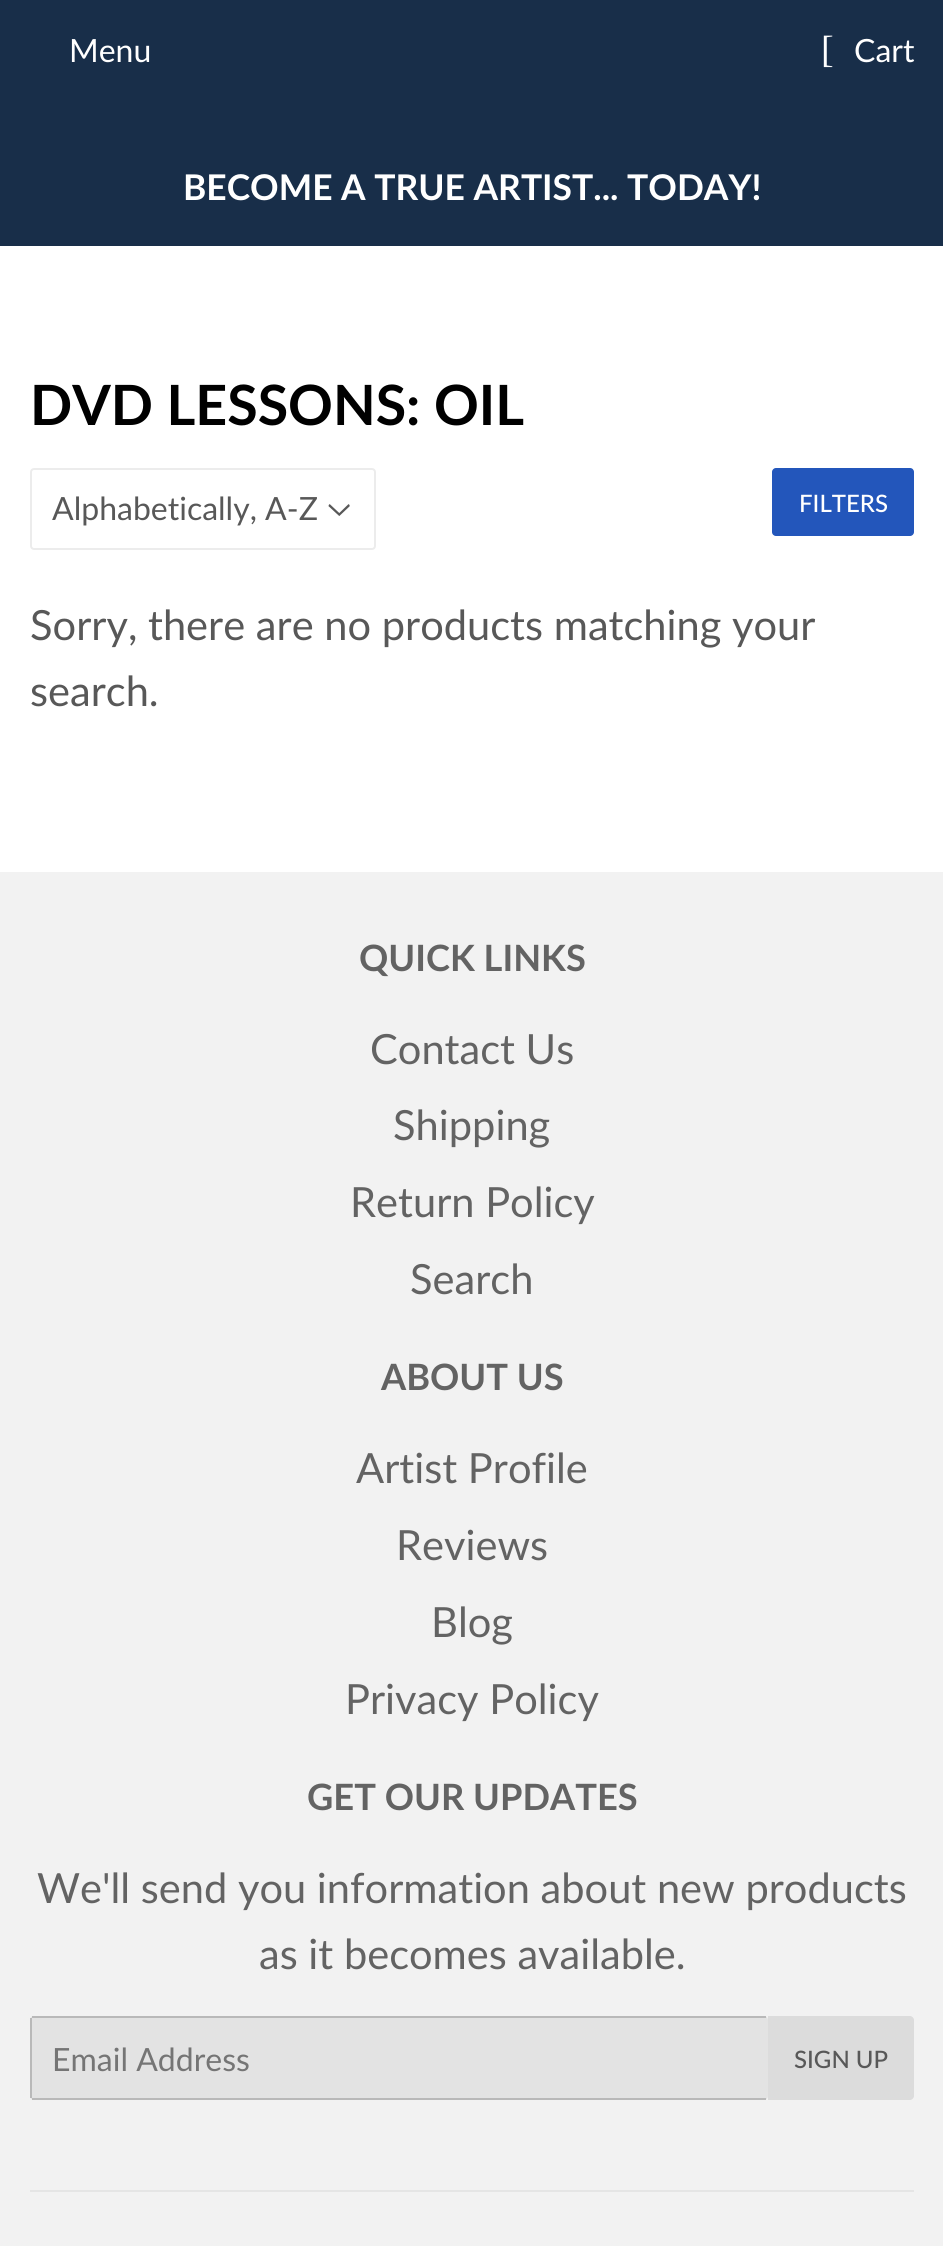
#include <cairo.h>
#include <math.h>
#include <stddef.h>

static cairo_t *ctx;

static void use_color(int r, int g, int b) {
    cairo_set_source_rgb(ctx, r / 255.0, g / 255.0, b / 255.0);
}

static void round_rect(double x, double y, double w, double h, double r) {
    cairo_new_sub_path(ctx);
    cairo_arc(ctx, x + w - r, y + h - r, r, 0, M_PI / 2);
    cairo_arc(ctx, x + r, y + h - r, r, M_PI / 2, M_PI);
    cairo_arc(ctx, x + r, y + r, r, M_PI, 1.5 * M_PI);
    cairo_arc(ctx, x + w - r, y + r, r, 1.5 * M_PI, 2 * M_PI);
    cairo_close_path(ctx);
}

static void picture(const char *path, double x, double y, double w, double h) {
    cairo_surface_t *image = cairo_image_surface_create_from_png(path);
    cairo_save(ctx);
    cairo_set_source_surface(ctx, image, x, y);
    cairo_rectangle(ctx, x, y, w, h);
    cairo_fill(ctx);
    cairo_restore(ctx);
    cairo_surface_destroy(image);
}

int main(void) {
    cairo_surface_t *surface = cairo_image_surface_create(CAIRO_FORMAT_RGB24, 943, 2246);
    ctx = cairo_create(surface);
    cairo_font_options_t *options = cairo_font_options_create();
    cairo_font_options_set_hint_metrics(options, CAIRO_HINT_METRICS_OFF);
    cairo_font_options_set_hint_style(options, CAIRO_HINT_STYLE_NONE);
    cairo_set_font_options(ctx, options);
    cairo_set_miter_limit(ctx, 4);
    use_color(255, 255, 255);
    cairo_paint(ctx);
    use_color(24, 46, 73);
    cairo_rectangle(ctx, 0, 0, 943, 246);
    cairo_fill(ctx);
    cairo_select_font_face(ctx, "Lato", CAIRO_FONT_SLANT_NORMAL, CAIRO_FONT_WEIGHT_NORMAL);
    cairo_set_font_size(ctx, 32);
    use_color(255, 255, 255);
    cairo_move_to(ctx, 69, 62);
    cairo_show_text(ctx, "Menu");
    cairo_select_font_face(ctx, "Liberation Serif", CAIRO_FONT_SLANT_NORMAL, CAIRO_FONT_WEIGHT_NORMAL);
    cairo_set_font_size(ctx, 38);
    cairo_move_to(ctx, 821, 62);
    cairo_show_text(ctx, "[");
    cairo_select_font_face(ctx, "Lato", CAIRO_FONT_SLANT_NORMAL, CAIRO_FONT_WEIGHT_NORMAL);
    cairo_set_font_size(ctx, 32);
    cairo_move_to(ctx, 854, 62);
    cairo_show_text(ctx, "Cart");
    cairo_select_font_face(ctx, "Lato", CAIRO_FONT_SLANT_NORMAL, CAIRO_FONT_WEIGHT_BOLD);
    cairo_set_font_size(ctx, 35.4);
    cairo_move_to(ctx, 183, 200);
    cairo_show_text(ctx, "BECOME A TRUE ARTIST... TODAY!");
    cairo_set_font_size(ctx, 55.5);
    use_color(0, 0, 0);
    cairo_move_to(ctx, 30, 425);
    cairo_show_text(ctx, "DVD LESSONS: OIL");
    picture("img1.png", 328, 504, 22, 12);
    round_rect(31, 469, 344, 80, 3);
    use_color(236, 236, 236);
    cairo_stroke(ctx);
    cairo_select_font_face(ctx, "Lato", CAIRO_FONT_SLANT_NORMAL, CAIRO_FONT_WEIGHT_NORMAL);
    cairo_set_font_size(ctx, 32);
    use_color(88, 88, 88);
    cairo_move_to(ctx, 52, 520);
    cairo_show_text(ctx, "Alphabetically, A-Z");
    use_color(35, 86, 187);
    round_rect(772, 468, 142, 68, 4);
    cairo_fill(ctx);
    cairo_select_font_face(ctx, "Lato Medium", CAIRO_FONT_SLANT_NORMAL, CAIRO_FONT_WEIGHT_NORMAL);
    cairo_set_font_size(ctx, 24);
    use_color(255, 255, 255);
    cairo_move_to(ctx, 799, 512);
    cairo_show_text(ctx, "FILTERS");
    cairo_select_font_face(ctx, "Lato", CAIRO_FONT_SLANT_NORMAL, CAIRO_FONT_WEIGHT_NORMAL);
    cairo_set_font_size(ctx, 41.6);
    use_color(88, 88, 88);
    cairo_move_to(ctx, 30, 640);
    cairo_show_text(ctx, "Sorry, there are no products matching your");
    cairo_move_to(ctx, 30, 706);
    cairo_show_text(ctx, "search.");
    use_color(242, 242, 242);
    cairo_rectangle(ctx, 0, 872, 943, 1374);
    cairo_fill(ctx);
    cairo_select_font_face(ctx, "Lato", CAIRO_FONT_SLANT_NORMAL, CAIRO_FONT_WEIGHT_BOLD);
    cairo_set_font_size(ctx, 36.25);
    use_color(99, 99, 99);
    cairo_move_to(ctx, 359, 971);
    cairo_show_text(ctx, "QUICK LINKS");
    cairo_select_font_face(ctx, "Lato", CAIRO_FONT_SLANT_NORMAL, CAIRO_FONT_WEIGHT_NORMAL);
    cairo_set_font_size(ctx, 41.6);
    cairo_move_to(ctx, 370, 1064);
    cairo_show_text(ctx, "Contact Us");
    cairo_move_to(ctx, 393, 1140);
    cairo_show_text(ctx, "Shipping");
    cairo_move_to(ctx, 350, 1217);
    cairo_show_text(ctx, "Return Policy");
    cairo_move_to(ctx, 410, 1294);
    cairo_show_text(ctx, "Search");
    cairo_select_font_face(ctx, "Lato", CAIRO_FONT_SLANT_NORMAL, CAIRO_FONT_WEIGHT_BOLD);
    cairo_set_font_size(ctx, 36.25);
    cairo_move_to(ctx, 381, 1390);
    cairo_show_text(ctx, "ABOUT US");
    cairo_select_font_face(ctx, "Lato", CAIRO_FONT_SLANT_NORMAL, CAIRO_FONT_WEIGHT_NORMAL);
    cairo_set_font_size(ctx, 41.6);
    cairo_move_to(ctx, 356, 1483);
    cairo_show_text(ctx, "Artist Profile");
    cairo_move_to(ctx, 396, 1560);
    cairo_show_text(ctx, "Reviews");
    cairo_move_to(ctx, 431, 1637);
    cairo_show_text(ctx, "Blog");
    cairo_move_to(ctx, 345, 1714);
    cairo_show_text(ctx, "Privacy Policy");
    cairo_select_font_face(ctx, "Lato", CAIRO_FONT_SLANT_NORMAL, CAIRO_FONT_WEIGHT_BOLD);
    cairo_set_font_size(ctx, 36.25);
    cairo_move_to(ctx, 307, 1810);
    cairo_show_text(ctx, "GET OUR UPDATES");
    cairo_select_font_face(ctx, "Lato", CAIRO_FONT_SLANT_NORMAL, CAIRO_FONT_WEIGHT_NORMAL);
    cairo_set_font_size(ctx, 41.6);
    cairo_move_to(ctx, 37, 1903);
    cairo_show_text(ctx, "We'll send you information about new products");
    cairo_move_to(ctx, 259, 1969);
    cairo_show_text(ctx, "as it becomes available.");
    use_color(227, 227, 227);
    round_rect(30, 2016, 738, 84, 4);
    cairo_fill(ctx);
    use_color(185, 185, 185);
    cairo_rectangle(ctx, 32, 2016, 734, 2);
    cairo_fill(ctx);
    cairo_rectangle(ctx, 32, 2098, 734, 2);
    cairo_fill(ctx);
    cairo_rectangle(ctx, 30, 2018, 2, 80);
    cairo_fill(ctx);
    cairo_set_font_size(ctx, 32);
    use_color(117, 117, 117);
    cairo_move_to(ctx, 52, 2071);
    cairo_show_text(ctx, "Email Address");
    use_color(220, 220, 220);
    cairo_new_path(ctx);
    cairo_move_to(ctx, 768, 2016);
    cairo_line_to(ctx, 910, 2016);
    cairo_curve_to(ctx, 912, 2016, 914, 2018, 914, 2020);
    cairo_line_to(ctx, 914, 2096);
    cairo_curve_to(ctx, 914, 2098, 912, 2100, 910, 2100);
    cairo_line_to(ctx, 768, 2100);
    cairo_close_path(ctx);
    cairo_fill(ctx);
    cairo_select_font_face(ctx, "Lato Medium", CAIRO_FONT_SLANT_NORMAL, CAIRO_FONT_WEIGHT_NORMAL);
    cairo_set_font_size(ctx, 24);
    use_color(88, 88, 88);
    cairo_move_to(ctx, 794, 2068);
    cairo_show_text(ctx, "SIGN UP");
    use_color(229, 229, 229);
    cairo_rectangle(ctx, 30, 2190, 884, 2);
    cairo_fill(ctx);
    cairo_surface_write_to_png(surface, "result.png");
    cairo_font_options_destroy(options);
    cairo_destroy(ctx);
    cairo_surface_destroy(surface);
    return 0;
}
